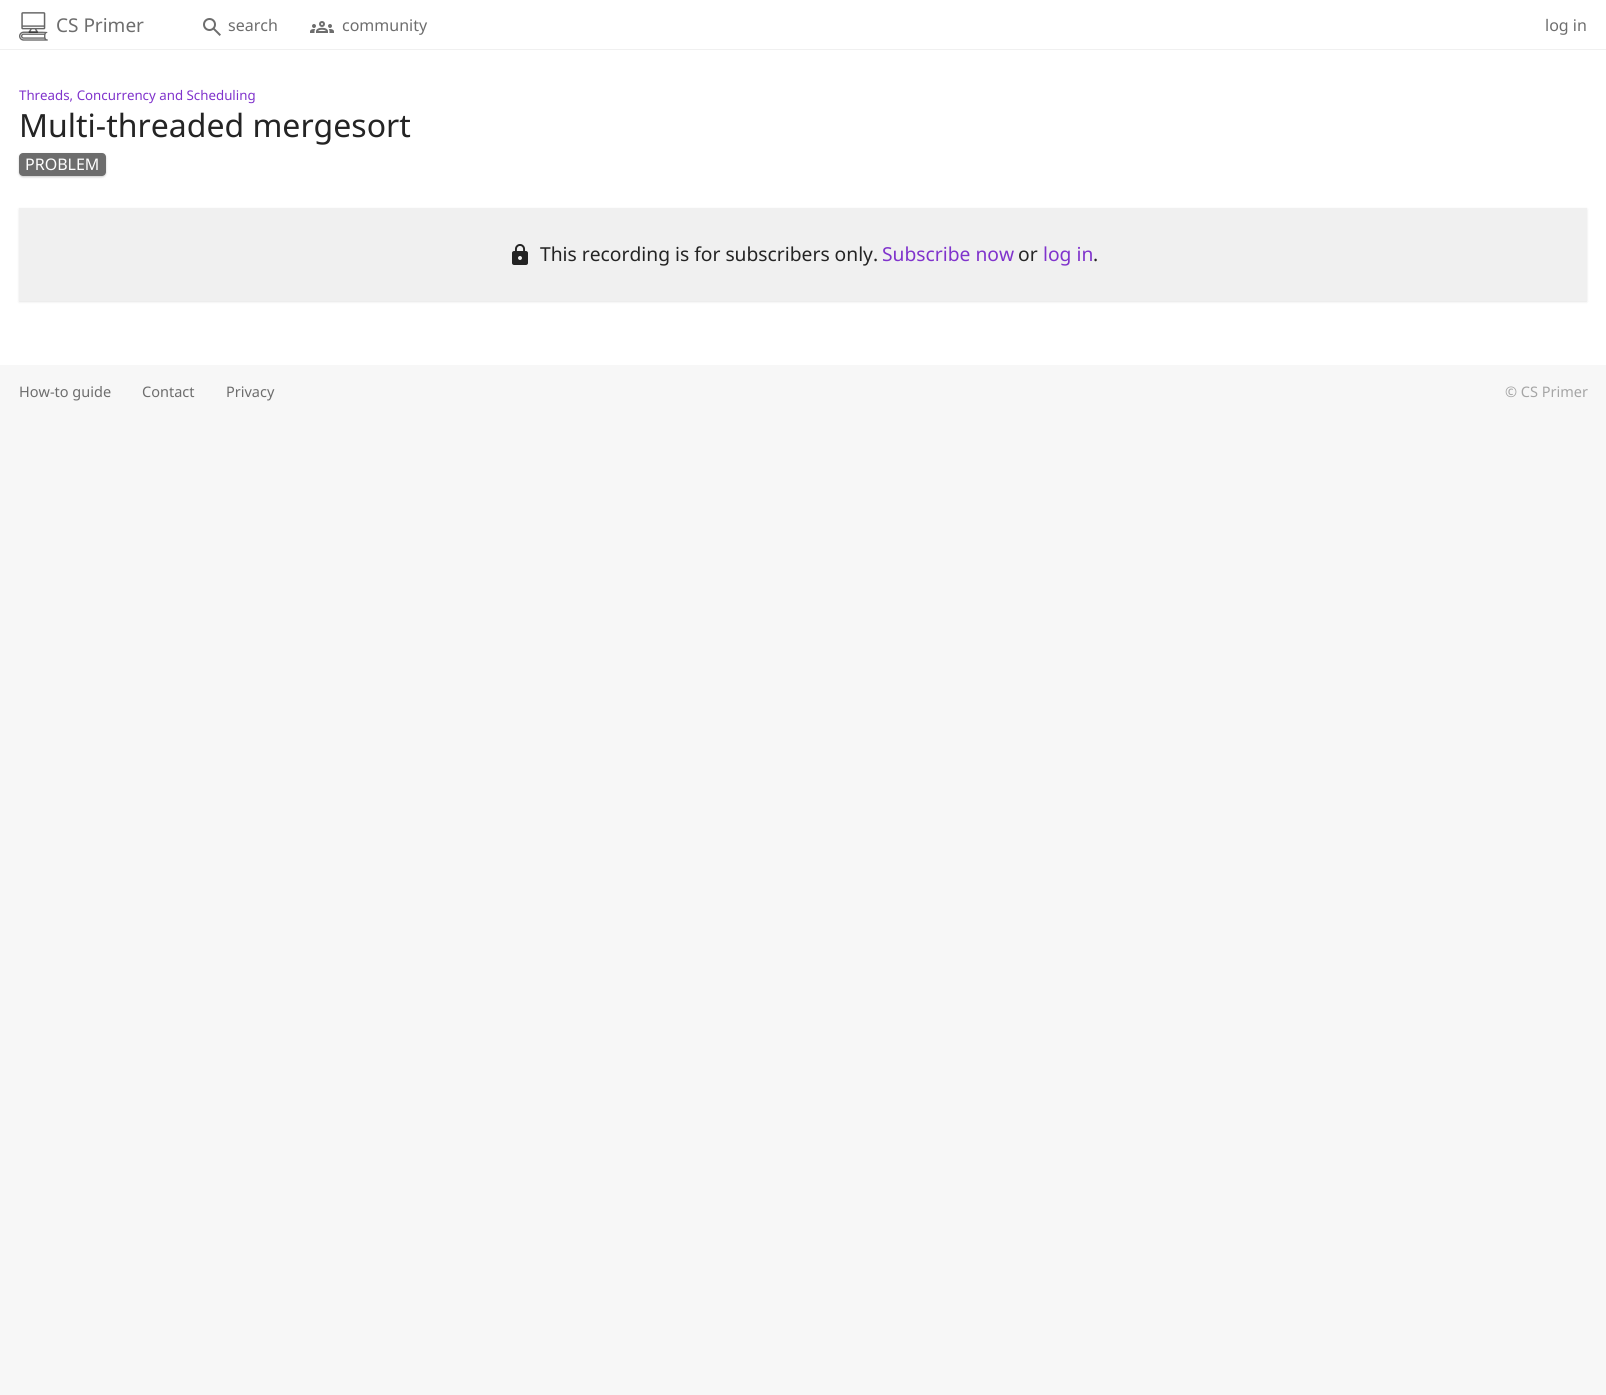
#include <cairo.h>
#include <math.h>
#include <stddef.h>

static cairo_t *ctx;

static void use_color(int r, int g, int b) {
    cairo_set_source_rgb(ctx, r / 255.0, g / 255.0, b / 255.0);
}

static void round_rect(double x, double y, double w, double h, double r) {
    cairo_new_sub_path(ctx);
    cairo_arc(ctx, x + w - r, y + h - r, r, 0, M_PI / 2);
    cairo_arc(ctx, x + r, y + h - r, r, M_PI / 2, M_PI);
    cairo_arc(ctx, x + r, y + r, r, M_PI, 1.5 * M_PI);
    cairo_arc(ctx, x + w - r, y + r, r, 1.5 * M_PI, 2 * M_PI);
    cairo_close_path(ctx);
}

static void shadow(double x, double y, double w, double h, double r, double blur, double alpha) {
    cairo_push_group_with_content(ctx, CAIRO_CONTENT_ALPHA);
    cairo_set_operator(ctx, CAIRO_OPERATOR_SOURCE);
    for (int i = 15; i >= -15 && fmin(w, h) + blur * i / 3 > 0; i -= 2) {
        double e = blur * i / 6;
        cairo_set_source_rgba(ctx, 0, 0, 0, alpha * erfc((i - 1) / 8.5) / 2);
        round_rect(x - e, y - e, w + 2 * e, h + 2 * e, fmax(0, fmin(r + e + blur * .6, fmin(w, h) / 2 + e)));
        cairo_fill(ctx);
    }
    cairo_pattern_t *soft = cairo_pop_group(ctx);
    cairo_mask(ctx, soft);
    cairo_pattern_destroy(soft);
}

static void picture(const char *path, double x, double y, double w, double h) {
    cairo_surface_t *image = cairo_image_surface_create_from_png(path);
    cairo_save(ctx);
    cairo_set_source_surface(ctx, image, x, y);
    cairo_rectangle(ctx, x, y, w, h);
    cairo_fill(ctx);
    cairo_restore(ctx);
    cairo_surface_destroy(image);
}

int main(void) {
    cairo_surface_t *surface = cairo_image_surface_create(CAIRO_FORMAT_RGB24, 1606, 1395);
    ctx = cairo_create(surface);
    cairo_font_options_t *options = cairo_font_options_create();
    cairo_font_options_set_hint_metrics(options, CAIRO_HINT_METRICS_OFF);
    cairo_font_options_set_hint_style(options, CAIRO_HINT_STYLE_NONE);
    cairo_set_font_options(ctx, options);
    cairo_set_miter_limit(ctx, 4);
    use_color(255, 255, 255);
    cairo_paint(ctx);
    use_color(240, 240, 240);
    cairo_rectangle(ctx, 0, 49, 1606, 1);
    cairo_fill(ctx);
    picture("img1.png", 19, 12, 29, 29);
    cairo_select_font_face(ctx, "Noto Sans", CAIRO_FONT_SLANT_NORMAL, CAIRO_FONT_WEIGHT_NORMAL);
    cairo_set_font_size(ctx, 19);
    use_color(109, 109, 109);
    cairo_move_to(ctx, 56, 32);
    cairo_show_text(ctx, "CS Primer");
    picture("img2.png", 203, 18, 18, 18);
    cairo_set_font_size(ctx, 16);
    cairo_move_to(ctx, 228, 31);
    cairo_show_text(ctx, "search");
    picture("img3.png", 310, 21, 24, 12);
    cairo_move_to(ctx, 342, 31);
    cairo_show_text(ctx, "community");
    cairo_move_to(ctx, 1545, 31);
    cairo_show_text(ctx, "log in");
    cairo_set_font_size(ctx, 13.3);
    use_color(128, 51, 204);
    cairo_move_to(ctx, 19, 100);
    cairo_show_text(ctx, "Threads, Concurrency and Scheduling");
    cairo_set_font_size(ctx, 32);
    use_color(36, 36, 36);
    cairo_move_to(ctx, 19, 137);
    cairo_show_text(ctx, "Multi-threaded mergesort");
    cairo_save(ctx);
    cairo_set_fill_rule(ctx, CAIRO_FILL_RULE_EVEN_ODD);
    cairo_new_path(ctx);
    cairo_move_to(ctx, 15, 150);
    cairo_line_to(ctx, 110, 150);
    cairo_line_to(ctx, 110, 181);
    cairo_line_to(ctx, 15, 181);
    cairo_close_path(ctx);
    cairo_move_to(ctx, 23, 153);
    cairo_line_to(ctx, 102, 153);
    cairo_curve_to(ctx, 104, 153, 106, 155, 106, 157);
    cairo_line_to(ctx, 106, 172);
    cairo_curve_to(ctx, 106, 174, 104, 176, 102, 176);
    cairo_line_to(ctx, 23, 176);
    cairo_curve_to(ctx, 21, 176, 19, 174, 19, 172);
    cairo_line_to(ctx, 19, 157);
    cairo_curve_to(ctx, 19, 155, 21, 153, 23, 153);
    cairo_close_path(ctx);
    cairo_clip(ctx);
    use_color(0, 0, 0);
    shadow(19, 154, 87, 23, 4, 1, 0.2);
    cairo_restore(ctx);
    cairo_set_source_rgba(ctx, 0.047, 0.047, 0.047, 0.6);
    round_rect(19, 153, 87, 23, 4);
    cairo_fill(ctx);
    cairo_set_font_size(ctx, 16);
    use_color(255, 255, 255);
    cairo_move_to(ctx, 25, 170);
    cairo_show_text(ctx, "PROBLEM");
    use_color(0, 0, 0);
    shadow(19, 209, 1568, 93, 0, 1, 0.1);
    use_color(240, 240, 240);
    cairo_rectangle(ctx, 19, 208, 1568, 93);
    cairo_fill(ctx);
    picture("img4.png", 512, 244, 16, 21);
    cairo_set_font_size(ctx, 19.25);
    use_color(36, 36, 36);
    cairo_move_to(ctx, 540, 261);
    cairo_show_text(ctx, "This recording is for subscribers only.");
    use_color(128, 51, 204);
    cairo_move_to(ctx, 882, 261);
    cairo_show_text(ctx, "Subscribe now");
    use_color(36, 36, 36);
    cairo_move_to(ctx, 1018, 261);
    cairo_show_text(ctx, "or");
    use_color(128, 51, 204);
    cairo_move_to(ctx, 1043, 261);
    cairo_show_text(ctx, "log in");
    use_color(36, 36, 36);
    cairo_move_to(ctx, 1093, 261);
    cairo_show_text(ctx, ".");
    use_color(247, 247, 247);
    cairo_new_path(ctx);
    cairo_move_to(ctx, -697, 365);
    cairo_line_to(ctx, -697, 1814);
    cairo_line_to(ctx, 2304, 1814);
    cairo_line_to(ctx, 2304, 365);
    cairo_line_to(ctx, 1606, 365);
    cairo_line_to(ctx, 1606, 419);
    cairo_line_to(ctx, 0, 419);
    cairo_line_to(ctx, 0, 365);
    cairo_close_path(ctx);
    cairo_fill(ctx);
    cairo_rectangle(ctx, 0, 365, 1606, 54);
    cairo_fill(ctx);
    cairo_set_font_size(ctx, 14.5);
    use_color(109, 109, 109);
    cairo_move_to(ctx, 19, 397);
    cairo_show_text(ctx, "How‑to guide");
    cairo_move_to(ctx, 142, 397);
    cairo_show_text(ctx, "Contact");
    cairo_move_to(ctx, 226, 397);
    cairo_show_text(ctx, "Privacy");
    use_color(165, 165, 165);
    cairo_move_to(ctx, 1505, 397);
    cairo_show_text(ctx, "© CS Primer");
    cairo_surface_write_to_png(surface, "result.png");
    cairo_font_options_destroy(options);
    cairo_destroy(ctx);
    cairo_surface_destroy(surface);
    return 0;
}
